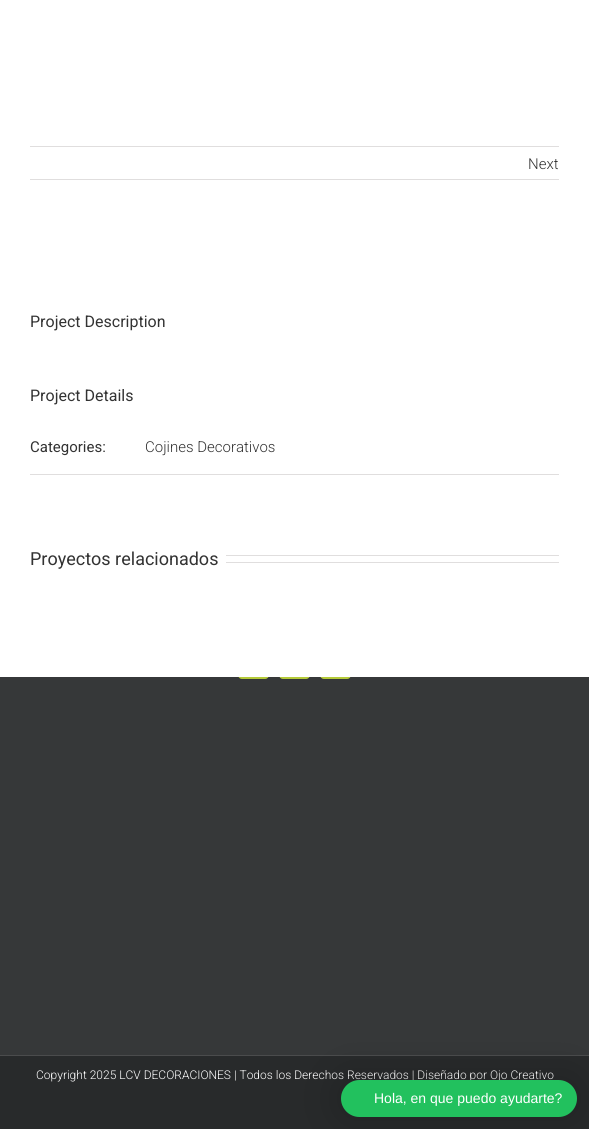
#include <cairo.h>
#include <math.h>
#include <stddef.h>

static cairo_t *ctx;

static void use_color(int r, int g, int b) {
    cairo_set_source_rgb(ctx, r / 255.0, g / 255.0, b / 255.0);
}

static void round_rect(double x, double y, double w, double h, double r) {
    cairo_new_sub_path(ctx);
    cairo_arc(ctx, x + w - r, y + h - r, r, 0, M_PI / 2);
    cairo_arc(ctx, x + r, y + h - r, r, M_PI / 2, M_PI);
    cairo_arc(ctx, x + r, y + r, r, M_PI, 1.5 * M_PI);
    cairo_arc(ctx, x + w - r, y + r, r, 1.5 * M_PI, 2 * M_PI);
    cairo_close_path(ctx);
}

static void shadow(double x, double y, double w, double h, double r, double blur, double alpha) {
    cairo_push_group_with_content(ctx, CAIRO_CONTENT_ALPHA);
    cairo_set_operator(ctx, CAIRO_OPERATOR_SOURCE);
    for (int i = 15; i >= -15 && fmin(w, h) + blur * i / 3 > 0; i -= 2) {
        double e = blur * i / 6;
        cairo_set_source_rgba(ctx, 0, 0, 0, alpha * erfc((i - 1) / 8.5) / 2);
        round_rect(x - e, y - e, w + 2 * e, h + 2 * e, fmax(0, fmin(r + e + blur * .6, fmin(w, h) / 2 + e)));
        cairo_fill(ctx);
    }
    cairo_pattern_t *soft = cairo_pop_group(ctx);
    cairo_mask(ctx, soft);
    cairo_pattern_destroy(soft);
}

int main(void) {
    cairo_surface_t *surface = cairo_image_surface_create(CAIRO_FORMAT_RGB24, 589, 1129);
    ctx = cairo_create(surface);
    cairo_font_options_t *options = cairo_font_options_create();
    cairo_font_options_set_hint_metrics(options, CAIRO_HINT_METRICS_OFF);
    cairo_font_options_set_hint_style(options, CAIRO_HINT_STYLE_NONE);
    cairo_set_font_options(ctx, options);
    cairo_set_miter_limit(ctx, 4);
    use_color(255, 255, 255);
    cairo_paint(ctx);
    use_color(54, 56, 57);
    cairo_rectangle(ctx, 0, 677, 589, 378);
    cairo_fill(ctx);
    use_color(181, 202, 56);
    round_rect(238.5, 645.5, 30, 33, 3.5);
    cairo_fill_preserve(ctx);
    cairo_set_line_width(ctx, 1);
    cairo_stroke(ctx);
    round_rect(279.5, 645.5, 30, 33, 3.5);
    cairo_fill_preserve(ctx);
    cairo_stroke(ctx);
    round_rect(320.5, 645.5, 30, 33, 3.5);
    cairo_fill_preserve(ctx);
    cairo_stroke(ctx);
    use_color(255, 255, 255);
    cairo_rectangle(ctx, 238, 645, 113, 32);
    cairo_fill(ctx);
    use_color(224, 222, 222);
    cairo_rectangle(ctx, 30, 146, 529, 1);
    cairo_fill(ctx);
    cairo_rectangle(ctx, 30, 179, 529, 1);
    cairo_fill(ctx);
    cairo_select_font_face(ctx, "Roboto Light", CAIRO_FONT_SLANT_NORMAL, CAIRO_FONT_WEIGHT_NORMAL);
    cairo_set_font_size(ctx, 15);
    use_color(51, 51, 51);
    cairo_move_to(ctx, 528, 169);
    cairo_show_text(ctx, "Next");
    cairo_select_font_face(ctx, "Roboto", CAIRO_FONT_SLANT_NORMAL, CAIRO_FONT_WEIGHT_NORMAL);
    cairo_set_font_size(ctx, 16);
    cairo_move_to(ctx, 30, 327);
    cairo_show_text(ctx, "Project Description");
    cairo_move_to(ctx, 30, 401);
    cairo_show_text(ctx, "Project Details");
    use_color(224, 222, 222);
    cairo_rectangle(ctx, 30, 474, 529, 1);
    cairo_fill(ctx);
    cairo_set_font_size(ctx, 15);
    use_color(51, 51, 51);
    cairo_move_to(ctx, 30, 452);
    cairo_show_text(ctx, "Categories:");
    cairo_select_font_face(ctx, "Roboto Light", CAIRO_FONT_SLANT_NORMAL, CAIRO_FONT_WEIGHT_NORMAL);
    cairo_move_to(ctx, 145, 452);
    cairo_show_text(ctx, "Cojines Decorativos");
    cairo_select_font_face(ctx, "Roboto", CAIRO_FONT_SLANT_NORMAL, CAIRO_FONT_WEIGHT_NORMAL);
    cairo_set_font_size(ctx, 18);
    cairo_move_to(ctx, 30, 565);
    cairo_show_text(ctx, "Proyectos relacionados");
    use_color(224, 222, 222);
    cairo_rectangle(ctx, 226, 555, 333, 1);
    cairo_fill(ctx);
    cairo_rectangle(ctx, 226, 562, 333, 1);
    cairo_fill(ctx);
    use_color(40, 42, 43);
    cairo_rectangle(ctx, 0, 1056, 589, 73);
    cairo_fill(ctx);
    use_color(75, 76, 77);
    cairo_rectangle(ctx, 0, 1055, 589, 1);
    cairo_fill(ctx);
    cairo_select_font_face(ctx, "Roboto Light", CAIRO_FONT_SLANT_NORMAL, CAIRO_FONT_WEIGHT_NORMAL);
    cairo_set_font_size(ctx, 12);
    use_color(255, 255, 255);
    cairo_move_to(ctx, 36, 1079);
    cairo_show_text(ctx, "Copyright 2025 LCV DECORACIONES | Todos los Derechos Reservados | Diseñado por Ojo Creativo");
    use_color(0, 0, 0);
    shadow(341, 1080, 236, 37, 18.5, 25, 0.2);
    use_color(34, 193, 94);
    round_rect(341, 1080, 236, 37, 18.5);
    cairo_fill(ctx);
    cairo_select_font_face(ctx, "Liberation Sans", CAIRO_FONT_SLANT_NORMAL, CAIRO_FONT_WEIGHT_NORMAL);
    cairo_set_font_size(ctx, 14);
    use_color(255, 255, 255);
    cairo_move_to(ctx, 374, 1103);
    cairo_show_text(ctx, "Hola, en que puedo ayudarte?");
    cairo_surface_write_to_png(surface, "result.png");
    cairo_font_options_destroy(options);
    cairo_destroy(ctx);
    cairo_surface_destroy(surface);
    return 0;
}
